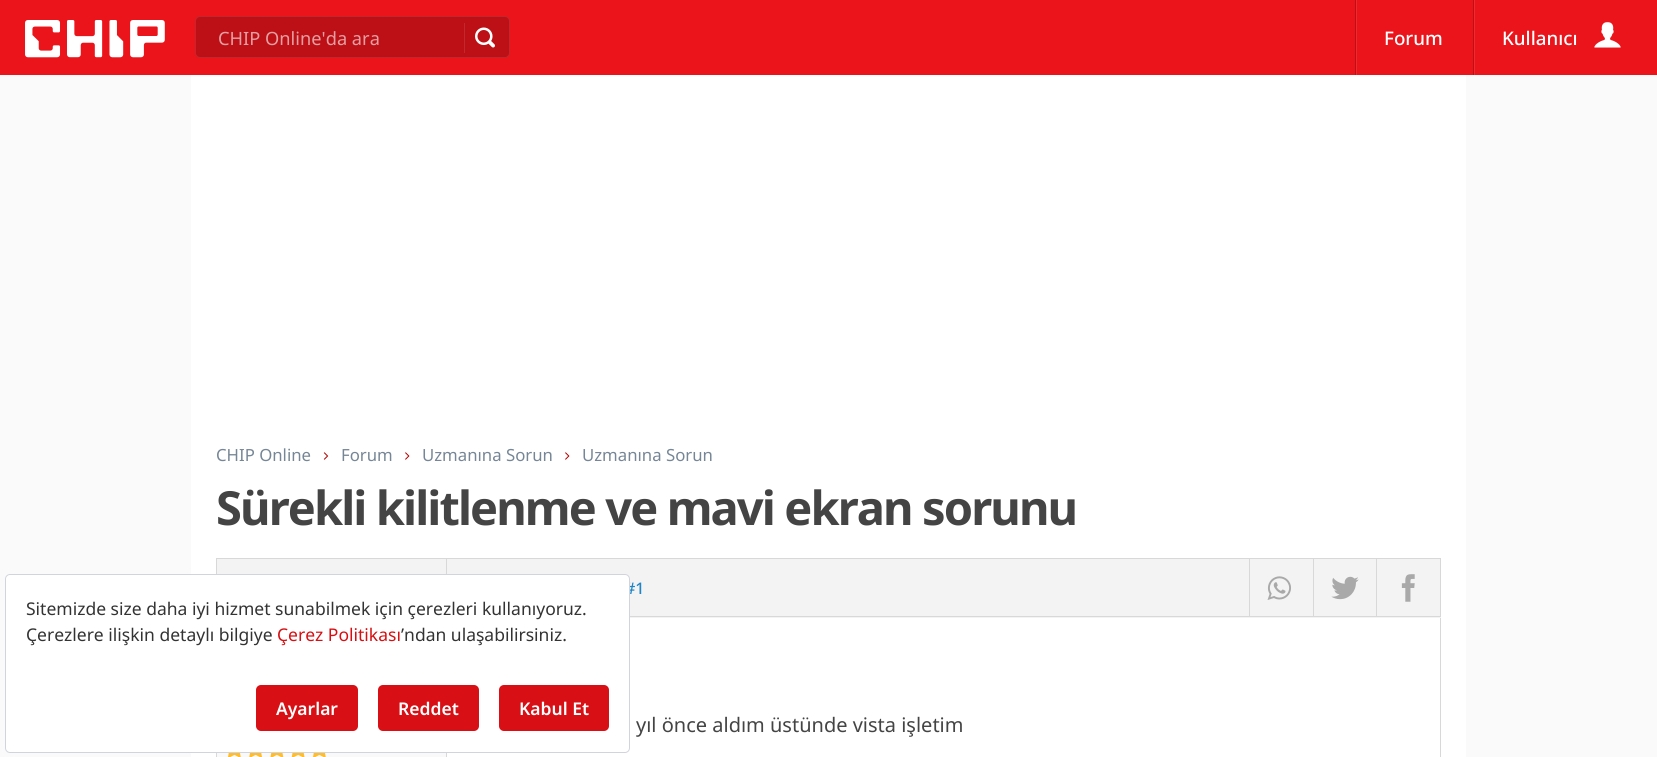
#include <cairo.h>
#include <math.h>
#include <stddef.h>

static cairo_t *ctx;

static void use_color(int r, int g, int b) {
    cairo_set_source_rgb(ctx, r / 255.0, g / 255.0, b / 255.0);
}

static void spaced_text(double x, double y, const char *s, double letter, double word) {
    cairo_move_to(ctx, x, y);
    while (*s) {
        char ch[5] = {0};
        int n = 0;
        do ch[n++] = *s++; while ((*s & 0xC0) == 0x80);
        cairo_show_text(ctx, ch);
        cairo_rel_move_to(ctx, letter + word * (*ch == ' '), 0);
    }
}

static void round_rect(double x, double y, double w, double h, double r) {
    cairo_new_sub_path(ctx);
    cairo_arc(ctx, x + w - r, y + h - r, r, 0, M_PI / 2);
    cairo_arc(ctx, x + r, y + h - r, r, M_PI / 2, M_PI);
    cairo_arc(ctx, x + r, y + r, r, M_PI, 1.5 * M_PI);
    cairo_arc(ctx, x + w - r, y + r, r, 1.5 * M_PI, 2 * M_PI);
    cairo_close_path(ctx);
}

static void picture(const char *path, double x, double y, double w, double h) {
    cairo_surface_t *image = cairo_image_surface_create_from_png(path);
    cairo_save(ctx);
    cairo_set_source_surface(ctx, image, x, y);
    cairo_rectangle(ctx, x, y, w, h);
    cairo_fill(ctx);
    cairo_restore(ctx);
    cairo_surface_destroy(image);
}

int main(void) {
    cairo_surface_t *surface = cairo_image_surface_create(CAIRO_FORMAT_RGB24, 1657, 757);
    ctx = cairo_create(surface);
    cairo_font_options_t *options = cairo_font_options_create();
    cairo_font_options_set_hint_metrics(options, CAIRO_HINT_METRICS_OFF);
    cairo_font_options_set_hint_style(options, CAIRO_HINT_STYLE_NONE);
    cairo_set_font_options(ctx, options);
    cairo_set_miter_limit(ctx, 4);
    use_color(250, 250, 250);
    cairo_paint(ctx);
    use_color(235, 20, 27);
    cairo_rectangle(ctx, 0, 0, 1657, 75);
    cairo_fill(ctx);
    picture("img1.png", 25, 20, 140, 38);
    use_color(188, 16, 22);
    round_rect(195, 16, 315, 42, 5);
    cairo_fill(ctx);
    round_rect(195.5, 16.5, 314, 41, 4.5);
    cairo_set_source_rgba(ctx, 1, 1, 1, 0.1);
    cairo_set_line_width(ctx, 1);
    cairo_stroke(ctx);
    cairo_select_font_face(ctx, "Noto Sans", CAIRO_FONT_SLANT_NORMAL, CAIRO_FONT_WEIGHT_NORMAL);
    cairo_set_font_size(ctx, 18.25);
    use_color(228, 159, 162);
    cairo_move_to(ctx, 218, 45);
    cairo_show_text(ctx, "CHIP Online'da ara");
    use_color(195, 40, 45);
    cairo_rectangle(ctx, 464, 23, 1, 30);
    cairo_fill(ctx);
    picture("img2.png", 475, 27, 20, 21);
    use_color(237, 44, 50);
    cairo_rectangle(ctx, 1356, 0, 1, 75);
    cairo_fill(ctx);
    use_color(188, 16, 22);
    cairo_rectangle(ctx, 1355, 0, 1, 75);
    cairo_fill(ctx);
    cairo_select_font_face(ctx, "Noto Sans Medium", CAIRO_FONT_SLANT_NORMAL, CAIRO_FONT_WEIGHT_NORMAL);
    cairo_set_font_size(ctx, 18.75);
    use_color(255, 255, 255);
    cairo_move_to(ctx, 1384, 45);
    cairo_show_text(ctx, "Forum");
    use_color(237, 44, 50);
    cairo_rectangle(ctx, 1474, 0, 1, 75);
    cairo_fill(ctx);
    use_color(188, 16, 22);
    cairo_rectangle(ctx, 1473, 0, 1, 75);
    cairo_fill(ctx);
    use_color(255, 255, 255);
    cairo_move_to(ctx, 1502, 45);
    cairo_show_text(ctx, "Kullanıcı");
    picture("img3.png", 1594, 22, 27, 26);
    cairo_rectangle(ctx, 191, 75, 1275, 682);
    cairo_fill(ctx);
    cairo_select_font_face(ctx, "Noto Sans", CAIRO_FONT_SLANT_NORMAL, CAIRO_FONT_WEIGHT_NORMAL);
    cairo_set_font_size(ctx, 16.75);
    use_color(118, 134, 150);
    cairo_move_to(ctx, 216, 461);
    cairo_show_text(ctx, "CHIP Online");
    picture("img4.png", 323, 452, 6, 8);
    cairo_move_to(ctx, 341, 461);
    cairo_show_text(ctx, "Forum");
    picture("img5.png", 405, 452, 5, 8);
    cairo_move_to(ctx, 422, 461);
    cairo_show_text(ctx, "Uzmanına Sorun");
    picture("img5.png", 565, 452, 5, 8);
    cairo_move_to(ctx, 582, 461);
    cairo_show_text(ctx, "Uzmanına Sorun");
    cairo_select_font_face(ctx, "Noto Sans", CAIRO_FONT_SLANT_NORMAL, CAIRO_FONT_WEIGHT_BOLD);
    cairo_set_font_size(ctx, 47);
    use_color(68, 68, 68);
    spaced_text(216, 525, "Sürekli kilitlenme ve mavi ekran sorunu", -1.9, 0);
    use_color(243, 243, 243);
    cairo_rectangle(ctx, 217, 559, 1224, 59);
    cairo_fill(ctx);
    use_color(216, 216, 216);
    cairo_rectangle(ctx, 216, 558, 1225, 1);
    cairo_fill(ctx);
    cairo_rectangle(ctx, 630, 616, 811, 1);
    cairo_fill(ctx);
    cairo_rectangle(ctx, 446, 559, 1, 15);
    cairo_fill(ctx);
    cairo_rectangle(ctx, 216, 559, 1, 15);
    cairo_fill(ctx);
    cairo_rectangle(ctx, 1440, 559, 1, 57);
    cairo_fill(ctx);
    cairo_select_font_face(ctx, "Noto Sans Medium", CAIRO_FONT_SLANT_NORMAL, CAIRO_FONT_WEIGHT_NORMAL);
    cairo_set_font_size(ctx, 16);
    use_color(31, 133, 197);
    cairo_move_to(ctx, 625, 594);
    cairo_show_text(ctx, "#1");
    use_color(216, 216, 216);
    cairo_rectangle(ctx, 1249, 559, 1, 57);
    cairo_fill(ctx);
    picture("img6.png", 1267, 576, 24, 24);
    cairo_rectangle(ctx, 1313, 559, 1, 57);
    cairo_fill(ctx);
    picture("img7.png", 1331, 576, 28, 24);
    cairo_rectangle(ctx, 1376, 559, 1, 57);
    cairo_fill(ctx);
    picture("img8.png", 1401, 574, 14, 28);
    cairo_rectangle(ctx, 1440, 618, 1, 139);
    cairo_fill(ctx);
    cairo_rectangle(ctx, 446, 753, 1, 4);
    cairo_fill(ctx);
    cairo_select_font_face(ctx, "Noto Sans", CAIRO_FONT_SLANT_NORMAL, CAIRO_FONT_WEIGHT_NORMAL);
    cairo_set_font_size(ctx, 20);
    use_color(68, 68, 68);
    cairo_move_to(ctx, 636, 732);
    cairo_show_text(ctx, "yıl önce aldım üstünde vista işletim");
    use_color(249, 249, 249);
    cairo_rectangle(ctx, 217, 753, 229, 4);
    cairo_fill(ctx);
    use_color(216, 216, 216);
    cairo_rectangle(ctx, 216, 753, 1, 4);
    cairo_fill(ctx);
    picture("img9.png", 228, 753, 98, 4);
    use_color(255, 255, 255);
    round_rect(5.5, 574.5, 624, 178, 4.5);
    cairo_fill_preserve(ctx);
    use_color(209, 213, 219);
    cairo_stroke(ctx);
    cairo_set_font_size(ctx, 17.5);
    use_color(51, 51, 51);
    cairo_move_to(ctx, 26, 615);
    cairo_show_text(ctx, "Sitemizde size daha iyi hizmet sunabilmek için çerezleri kullanıyoruz.");
    cairo_move_to(ctx, 26, 641);
    cairo_show_text(ctx, "Çerezlere ilişkin detaylı bilgiye");
    use_color(215, 15, 18);
    cairo_move_to(ctx, 277, 641);
    cairo_show_text(ctx, "Çerez Politikası");
    use_color(51, 51, 51);
    cairo_move_to(ctx, 401, 641);
    cairo_show_text(ctx, "’ndan ulaşabilirsiniz.");
    use_color(216, 15, 20);
    round_rect(256, 685, 102, 46, 5);
    cairo_fill(ctx);
    cairo_select_font_face(ctx, "Noto Sans SemiBold", CAIRO_FONT_SLANT_NORMAL, CAIRO_FONT_WEIGHT_NORMAL);
    use_color(255, 255, 255);
    cairo_move_to(ctx, 276, 715);
    cairo_show_text(ctx, "Ayarlar");
    use_color(216, 15, 20);
    round_rect(378, 685, 101, 46, 5);
    cairo_fill(ctx);
    use_color(255, 255, 255);
    cairo_move_to(ctx, 398, 715);
    cairo_show_text(ctx, "Reddet");
    use_color(216, 15, 20);
    round_rect(499, 685, 110, 46, 5);
    cairo_fill(ctx);
    use_color(255, 255, 255);
    cairo_move_to(ctx, 519, 715);
    cairo_show_text(ctx, "Kabul Et");
    cairo_surface_write_to_png(surface, "result.png");
    cairo_font_options_destroy(options);
    cairo_destroy(ctx);
    cairo_surface_destroy(surface);
    return 0;
}
